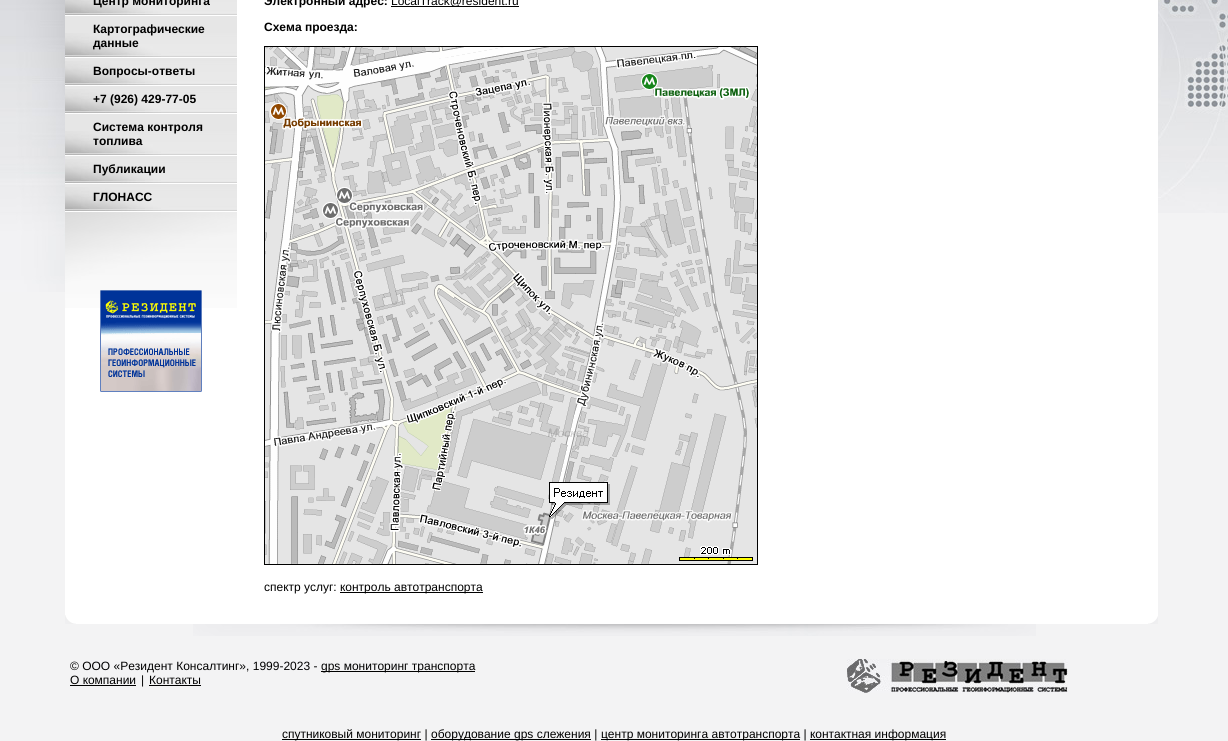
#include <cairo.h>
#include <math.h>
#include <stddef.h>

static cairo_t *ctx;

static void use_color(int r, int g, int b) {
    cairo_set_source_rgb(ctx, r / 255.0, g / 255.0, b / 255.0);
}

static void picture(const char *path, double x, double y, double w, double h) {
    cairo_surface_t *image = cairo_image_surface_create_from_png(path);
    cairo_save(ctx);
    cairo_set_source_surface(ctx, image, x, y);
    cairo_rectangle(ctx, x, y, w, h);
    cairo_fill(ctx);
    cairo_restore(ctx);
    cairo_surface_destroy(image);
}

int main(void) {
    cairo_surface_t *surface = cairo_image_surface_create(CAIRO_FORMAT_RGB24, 1228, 741);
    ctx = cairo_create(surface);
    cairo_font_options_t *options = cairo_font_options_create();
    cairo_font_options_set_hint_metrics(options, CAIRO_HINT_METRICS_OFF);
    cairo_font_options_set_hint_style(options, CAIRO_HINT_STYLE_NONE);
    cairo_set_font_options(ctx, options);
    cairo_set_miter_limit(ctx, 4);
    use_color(243, 243, 244);
    cairo_paint(ctx);
    picture("img1.png", 1158, 0, 70, 213);
    use_color(255, 255, 255);
    cairo_rectangle(ctx, 65, 0, 1093, 624);
    cairo_fill(ctx);
    picture("img2.png", 1148, 616, 10, 8);
    picture("img3.png", 0, 0, 65, 292);
    picture("img4.png", 65, 615, 11, 9);
    picture("img5.png", 65, 0, 172, 16);
    cairo_select_font_face(ctx, "Liberation Sans", CAIRO_FONT_SLANT_NORMAL, CAIRO_FONT_WEIGHT_BOLD);
    cairo_set_font_size(ctx, 12);
    use_color(0, 0, 0);
    cairo_move_to(ctx, 93, 5);
    cairo_show_text(ctx, "Центр мониторинга");
    use_color(230, 230, 230);
    cairo_rectangle(ctx, 65, 16, 172, 17);
    cairo_fill(ctx);
    picture("img6.png", 65, 33, 172, 25);
    use_color(0, 0, 0);
    cairo_move_to(ctx, 93, 33);
    cairo_show_text(ctx, "Картографические");
    cairo_move_to(ctx, 93, 47);
    cairo_show_text(ctx, "данные");
    use_color(230, 230, 230);
    cairo_rectangle(ctx, 65, 58, 172, 3);
    cairo_fill(ctx);
    picture("img6.png", 65, 61, 172, 25);
    use_color(0, 0, 0);
    cairo_move_to(ctx, 93, 75);
    cairo_show_text(ctx, "Вопросы-ответы");
    use_color(230, 230, 230);
    cairo_rectangle(ctx, 65, 86, 172, 3);
    cairo_fill(ctx);
    picture("img6.png", 65, 89, 172, 25);
    use_color(0, 0, 0);
    cairo_move_to(ctx, 93, 103);
    cairo_show_text(ctx, "+7 (926) 429-77-05");
    use_color(230, 230, 230);
    cairo_rectangle(ctx, 65, 114, 172, 17);
    cairo_fill(ctx);
    picture("img6.png", 65, 131, 172, 25);
    use_color(0, 0, 0);
    cairo_move_to(ctx, 93, 131);
    cairo_show_text(ctx, "Система контроля");
    cairo_move_to(ctx, 93, 145);
    cairo_show_text(ctx, "топлива");
    use_color(230, 230, 230);
    cairo_rectangle(ctx, 65, 156, 172, 3);
    cairo_fill(ctx);
    picture("img6.png", 65, 159, 172, 25);
    use_color(0, 0, 0);
    cairo_move_to(ctx, 93, 173);
    cairo_show_text(ctx, "Публикации");
    use_color(230, 230, 230);
    cairo_rectangle(ctx, 65, 184, 172, 3);
    cairo_fill(ctx);
    picture("img6.png", 65, 187, 172, 25);
    use_color(0, 0, 0);
    cairo_move_to(ctx, 93, 201);
    cairo_show_text(ctx, "ГЛОНАСС");
    picture("img7.png", 65, 212, 172, 96);
    picture("img8.png", 100, 290, 102, 102);
    cairo_move_to(ctx, 264, 5);
    cairo_show_text(ctx, "Электронный адрес:");
    cairo_rectangle(ctx, 391, 6, 128, 1);
    cairo_fill(ctx);
    cairo_select_font_face(ctx, "Liberation Sans", CAIRO_FONT_SLANT_NORMAL, CAIRO_FONT_WEIGHT_NORMAL);
    cairo_move_to(ctx, 391, 5);
    cairo_show_text(ctx, "LocalTrack@resident.ru");
    cairo_select_font_face(ctx, "Liberation Sans", CAIRO_FONT_SLANT_NORMAL, CAIRO_FONT_WEIGHT_BOLD);
    cairo_move_to(ctx, 264, 31);
    cairo_show_text(ctx, "Схема проезда:");
    picture("img9.png", 264, 46, 494, 519);
    cairo_select_font_face(ctx, "Liberation Sans", CAIRO_FONT_SLANT_NORMAL, CAIRO_FONT_WEIGHT_NORMAL);
    cairo_move_to(ctx, 264, 591);
    cairo_show_text(ctx, "спектр услуг:");
    cairo_rectangle(ctx, 340, 592, 143, 1);
    cairo_fill(ctx);
    cairo_move_to(ctx, 340, 591);
    cairo_show_text(ctx, "контроль автотранспорта");
    picture("img10.png", 193, 624, 843, 12);
    cairo_move_to(ctx, 70, 670);
    cairo_show_text(ctx, "© ООО «Резидент Консалтинг», 1999-2023 -");
    cairo_rectangle(ctx, 321, 671, 154, 1);
    cairo_fill(ctx);
    cairo_move_to(ctx, 321, 670);
    cairo_show_text(ctx, "gps мониторинг транспорта");
    cairo_move_to(ctx, 70, 684);
    cairo_show_text(ctx, "О компании");
    cairo_rectangle(ctx, 70, 685, 66, 1);
    cairo_fill(ctx);
    cairo_move_to(ctx, 141, 684);
    cairo_show_text(ctx, "|");
    cairo_move_to(ctx, 149, 684);
    cairo_show_text(ctx, "Контакты");
    cairo_rectangle(ctx, 149, 685, 52, 1);
    cairo_fill(ctx);
    picture("img11.png", 847, 659, 221, 34);
    cairo_rectangle(ctx, 282, 739, 139, 1);
    cairo_fill(ctx);
    cairo_move_to(ctx, 282, 738);
    cairo_show_text(ctx, "спутниковый мониторинг |");
    cairo_rectangle(ctx, 431, 739, 160, 1);
    cairo_fill(ctx);
    cairo_move_to(ctx, 431, 738);
    cairo_show_text(ctx, "оборудование gps слежения |");
    cairo_rectangle(ctx, 601, 739, 199, 1);
    cairo_fill(ctx);
    cairo_move_to(ctx, 601, 738);
    cairo_show_text(ctx, "центр мониторинга автотранспорта |");
    cairo_rectangle(ctx, 810, 739, 136, 1);
    cairo_fill(ctx);
    cairo_move_to(ctx, 810, 738);
    cairo_show_text(ctx, "контактная информация");
    cairo_surface_write_to_png(surface, "result.png");
    cairo_font_options_destroy(options);
    cairo_destroy(ctx);
    cairo_surface_destroy(surface);
    return 0;
}
